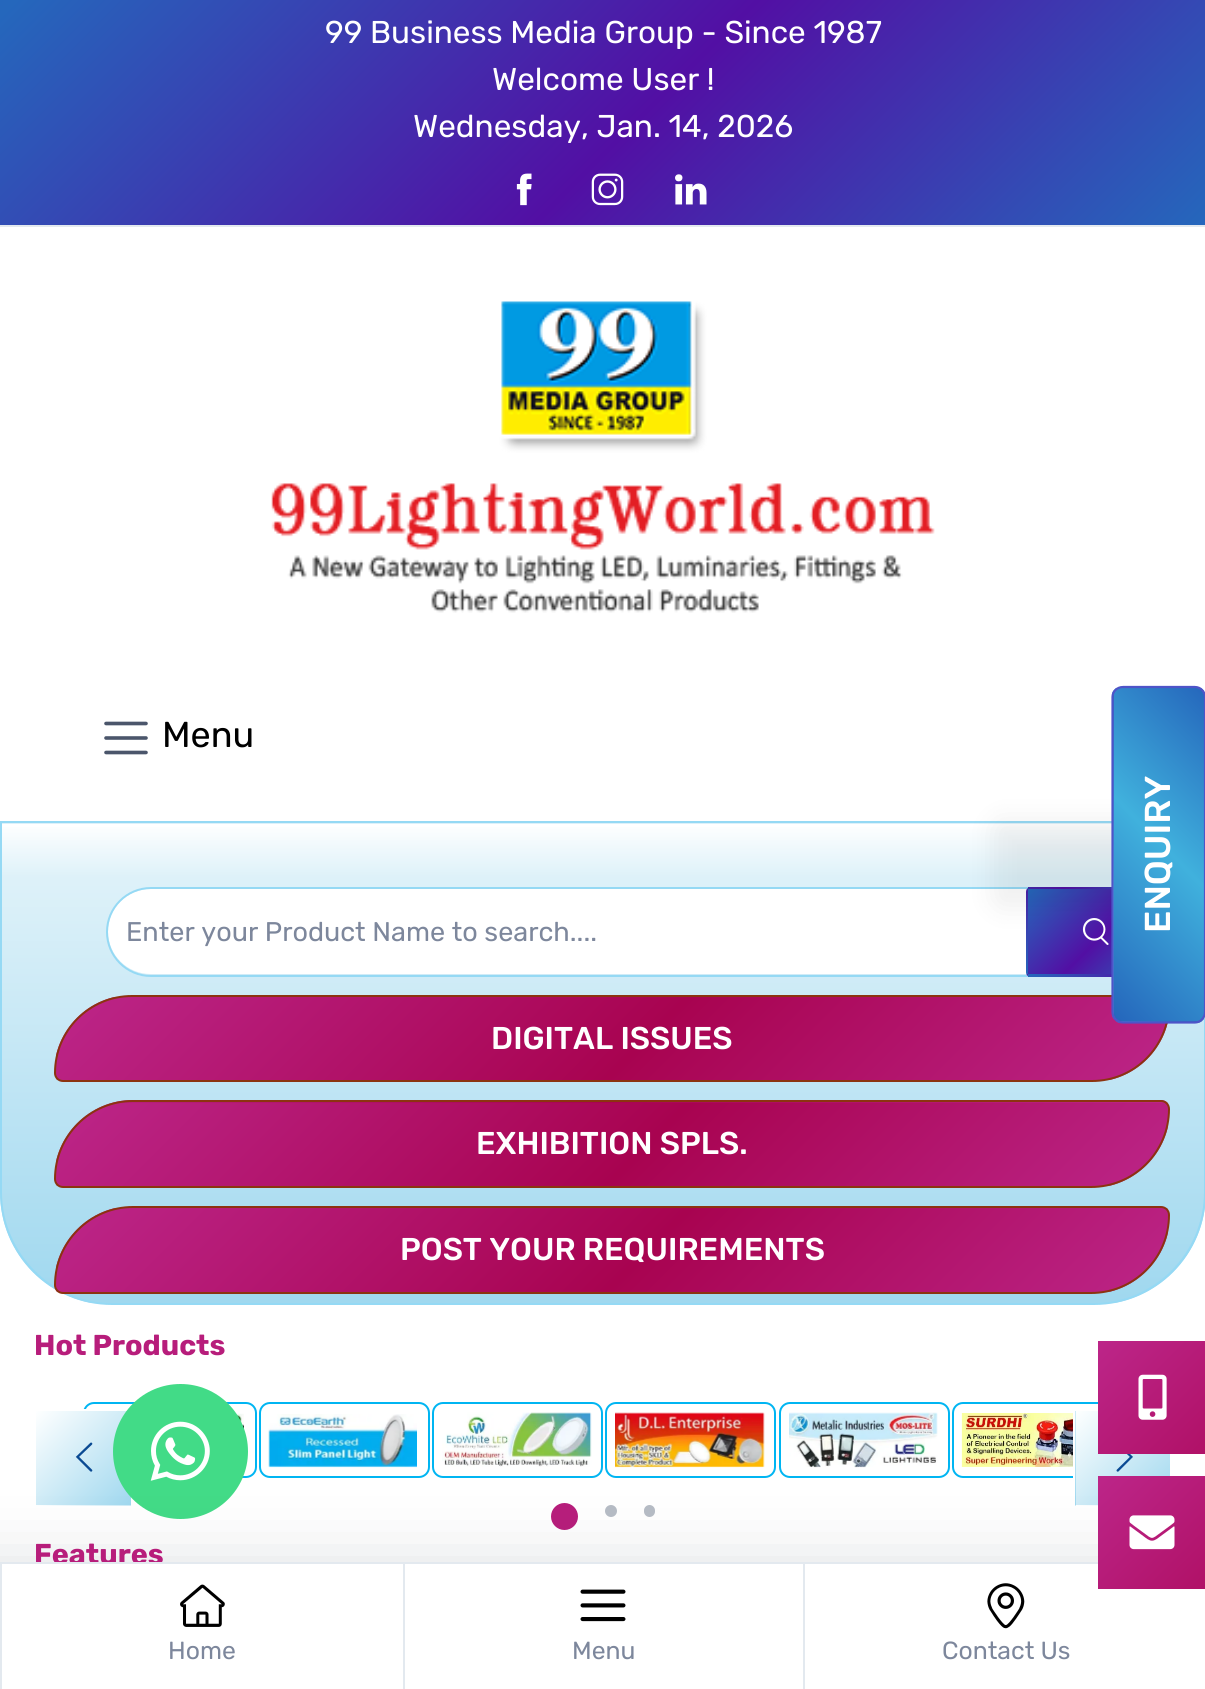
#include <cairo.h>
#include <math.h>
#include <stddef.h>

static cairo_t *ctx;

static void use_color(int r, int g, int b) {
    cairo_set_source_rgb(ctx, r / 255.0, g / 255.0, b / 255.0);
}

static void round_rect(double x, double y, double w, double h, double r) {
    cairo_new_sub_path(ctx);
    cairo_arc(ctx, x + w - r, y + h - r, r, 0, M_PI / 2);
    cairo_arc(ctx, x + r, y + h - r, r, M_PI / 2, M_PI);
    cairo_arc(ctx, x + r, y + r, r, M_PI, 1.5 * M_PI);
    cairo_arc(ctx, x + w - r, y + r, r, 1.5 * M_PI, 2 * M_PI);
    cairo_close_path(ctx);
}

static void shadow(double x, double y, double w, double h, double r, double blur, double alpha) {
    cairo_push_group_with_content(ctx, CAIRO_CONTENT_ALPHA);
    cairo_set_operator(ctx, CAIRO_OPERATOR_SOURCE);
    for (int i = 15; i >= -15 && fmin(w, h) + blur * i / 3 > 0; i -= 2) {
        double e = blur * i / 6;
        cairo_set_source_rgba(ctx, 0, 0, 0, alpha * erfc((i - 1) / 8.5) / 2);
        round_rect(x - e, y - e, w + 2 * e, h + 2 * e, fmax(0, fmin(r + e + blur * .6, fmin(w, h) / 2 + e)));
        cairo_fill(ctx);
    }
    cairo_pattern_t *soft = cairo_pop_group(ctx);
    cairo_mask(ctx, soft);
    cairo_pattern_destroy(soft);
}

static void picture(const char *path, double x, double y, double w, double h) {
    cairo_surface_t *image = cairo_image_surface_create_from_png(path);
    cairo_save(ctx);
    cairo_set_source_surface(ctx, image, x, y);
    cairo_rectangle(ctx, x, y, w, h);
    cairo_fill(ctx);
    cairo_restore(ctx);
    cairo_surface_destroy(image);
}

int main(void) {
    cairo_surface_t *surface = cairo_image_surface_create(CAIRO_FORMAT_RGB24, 1205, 1689);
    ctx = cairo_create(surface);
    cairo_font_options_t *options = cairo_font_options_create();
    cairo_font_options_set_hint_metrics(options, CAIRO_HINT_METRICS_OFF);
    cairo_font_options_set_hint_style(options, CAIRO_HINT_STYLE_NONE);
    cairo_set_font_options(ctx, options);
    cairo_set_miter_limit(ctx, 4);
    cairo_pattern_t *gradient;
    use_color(255, 255, 255);
    cairo_paint(ctx);
    gradient = cairo_pattern_create_linear(245, -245, 961, 470);
    cairo_pattern_add_color_stop_rgba(gradient, 0.01, 0.145, 0.404, 0.737, 1);
    cairo_pattern_add_color_stop_rgba(gradient, 0.53, 0.322, 0.059, 0.643, 1);
    cairo_pattern_add_color_stop_rgba(gradient, 1, 0.145, 0.404, 0.737, 1);
    cairo_set_source(ctx, gradient);
    cairo_pattern_destroy(gradient);
    cairo_rectangle(ctx, 0, 0, 1205, 225);
    cairo_fill(ctx);
    use_color(227, 233, 239);
    cairo_rectangle(ctx, 0, 225, 1205, 2);
    cairo_fill(ctx);
    cairo_select_font_face(ctx, "Rubik", CAIRO_FONT_SLANT_NORMAL, CAIRO_FONT_WEIGHT_NORMAL);
    cairo_set_font_size(ctx, 31.5);
    use_color(255, 255, 255);
    cairo_move_to(ctx, 325, 43);
    cairo_show_text(ctx, "99 Business Media Group - Since 1987");
    cairo_move_to(ctx, 492, 90);
    cairo_show_text(ctx, "Welcome User !");
    cairo_move_to(ctx, 413, 137);
    cairo_show_text(ctx, "Wednesday, Jan. 14, 2026");
    picture("img1.png", 516, 173, 16, 33);
    picture("img2.png", 591, 173, 33, 33);
    picture("img3.png", 675, 174, 32, 31);
    picture("img4.png", 271, 301, 664, 312);
    cairo_new_path(ctx);
    cairo_move_to(ctx, 106, 723.5);
    cairo_line_to(ctx, 146, 723.5);
    cairo_move_to(ctx, 106, 738);
    cairo_line_to(ctx, 146, 738);
    cairo_move_to(ctx, 106, 752.5);
    cairo_line_to(ctx, 146, 752.5);
    use_color(75, 86, 107);
    cairo_set_line_width(ctx, 3.6);
    cairo_set_line_cap(ctx, CAIRO_LINE_CAP_ROUND);
    cairo_stroke(ctx);
    cairo_set_font_size(ctx, 36);
    use_color(0, 0, 0);
    cairo_move_to(ctx, 162, 747);
    cairo_show_text(ctx, "Menu");
    gradient = cairo_pattern_create_linear(603, 769, 603, 824);
    cairo_pattern_add_color_stop_rgba(gradient, 0, 1, 1, 1, 1);
    cairo_pattern_add_color_stop_rgba(gradient, 0.99, 0.867, 0.945, 0.976, 1);
    cairo_set_source(ctx, gradient);
    cairo_pattern_destroy(gradient);
    cairo_rectangle(ctx, 0, 823, 1112, 1);
    cairo_fill(ctx);
    gradient = cairo_pattern_create_linear(603, 823, 603, 878);
    cairo_pattern_add_color_stop_rgba(gradient, 0, 1, 1, 1, 1);
    cairo_pattern_add_color_stop_rgba(gradient, 0.99, 0.867, 0.945, 0.976, 1);
    cairo_set_source(ctx, gradient);
    cairo_pattern_destroy(gradient);
    cairo_rectangle(ctx, 2, 827, 1110, 51);
    cairo_fill(ctx);
    use_color(149, 217, 244);
    cairo_rectangle(ctx, 0, 821, 1112, 2);
    cairo_fill(ctx);
    cairo_rectangle(ctx, 0, 821, 2, 57);
    cairo_fill(ctx);
    cairo_save(ctx);
    cairo_new_path(ctx);
    cairo_move_to(ctx, 0, 878);
    cairo_line_to(ctx, 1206, 878);
    cairo_line_to(ctx, 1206, 1192);
    cairo_curve_to(ctx, 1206, 1254.5, 1155.5, 1305, 1093, 1305);
    cairo_line_to(ctx, 113, 1305);
    cairo_curve_to(ctx, 50.5, 1305, 0, 1254.5, 0, 1192);
    cairo_close_path(ctx);
    cairo_clip(ctx);
    gradient = cairo_pattern_create_linear(603, 878, 603, 1303);
    cairo_pattern_add_color_stop_rgba(gradient, 0.01, 0.867, 0.945, 0.976, 1);
    cairo_pattern_add_color_stop_rgba(gradient, 1, 0.627, 0.847, 0.937, 1);
    cairo_set_source(ctx, gradient);
    cairo_pattern_destroy(gradient);
    cairo_rectangle(ctx, 0, 878, 1205, 425);
    cairo_fill(ctx);
    cairo_restore(ctx);
    cairo_set_fill_rule(ctx, CAIRO_FILL_RULE_EVEN_ODD);
    cairo_new_path(ctx);
    cairo_move_to(ctx, 0, 878);
    cairo_line_to(ctx, 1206, 878);
    cairo_line_to(ctx, 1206, 1192);
    cairo_curve_to(ctx, 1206, 1255, 1156, 1305, 1094, 1305);
    cairo_line_to(ctx, 112, 1305);
    cairo_curve_to(ctx, 50, 1305, 0, 1255, 0, 1192);
    cairo_close_path(ctx);
    cairo_move_to(ctx, 2, 878);
    cairo_line_to(ctx, 1204, 878);
    cairo_line_to(ctx, 1204, 1192);
    cairo_curve_to(ctx, 1204, 1253, 1154, 1303, 1094, 1303);
    cairo_line_to(ctx, 112, 1303);
    cairo_curve_to(ctx, 52, 1303, 2, 1253, 2, 1192);
    cairo_close_path(ctx);
    cairo_fill(ctx);
    use_color(255, 255, 255);
    round_rect(108, 889, 1062, 85, 42.5);
    cairo_fill(ctx);
    round_rect(107, 888, 1064, 88, 44);
    use_color(149, 217, 244);
    cairo_set_line_width(ctx, 2);
    cairo_set_line_cap(ctx, CAIRO_LINE_CAP_BUTT);
    cairo_stroke(ctx);
    cairo_set_font_size(ctx, 27);
    use_color(125, 135, 156);
    cairo_move_to(ctx, 126, 941);
    cairo_show_text(ctx, "Enter your Product Name to search....");
    cairo_save(ctx);
    cairo_set_fill_rule(ctx, CAIRO_FILL_RULE_WINDING);
    cairo_new_path(ctx);
    cairo_move_to(ctx, 1031, 887);
    cairo_line_to(ctx, 1127, 887);
    cairo_curve_to(ctx, 1152, 887, 1172, 907, 1172, 932);
    cairo_curve_to(ctx, 1172, 957, 1152, 977, 1127, 977);
    cairo_line_to(ctx, 1031, 977);
    cairo_curve_to(ctx, 1028, 977, 1026, 975, 1026, 972);
    cairo_line_to(ctx, 1026, 892);
    cairo_curve_to(ctx, 1026, 889, 1028, 887, 1031, 887);
    cairo_close_path(ctx);
    cairo_clip(ctx);
    gradient = cairo_pattern_create_linear(901, 789, 1014, 903);
    cairo_pattern_add_color_stop_rgba(gradient, 0.01, 0.145, 0.404, 0.737, 1);
    cairo_pattern_add_color_stop_rgba(gradient, 0.53, 0.322, 0.059, 0.643, 1);
    cairo_pattern_add_color_stop_rgba(gradient, 1, 0.145, 0.404, 0.737, 1);
    cairo_set_source(ctx, gradient);
    cairo_pattern_destroy(gradient);
    cairo_rectangle(ctx, 1026, 888, 2, 1);
    cairo_fill(ctx);
    cairo_restore(ctx);
    gradient = cairo_pattern_create_linear(1042, 789, 1156, 903);
    cairo_pattern_add_color_stop_rgba(gradient, 0.01, 0.145, 0.404, 0.737, 1);
    cairo_pattern_add_color_stop_rgba(gradient, 0.53, 0.322, 0.059, 0.643, 1);
    cairo_pattern_add_color_stop_rgba(gradient, 1, 0.145, 0.404, 0.737, 1);
    cairo_set_source(ctx, gradient);
    cairo_pattern_destroy(gradient);
    cairo_rectangle(ctx, 1028, 887, 84, 2);
    cairo_fill(ctx);
    cairo_save(ctx);
    cairo_set_fill_rule(ctx, CAIRO_FILL_RULE_WINDING);
    cairo_new_path(ctx);
    cairo_move_to(ctx, 1031, 887);
    cairo_line_to(ctx, 1127, 887);
    cairo_curve_to(ctx, 1152, 887, 1172, 907, 1172, 932);
    cairo_curve_to(ctx, 1172, 957, 1152, 977, 1127, 977);
    cairo_line_to(ctx, 1031, 977);
    cairo_curve_to(ctx, 1028, 977, 1026, 975, 1026, 972);
    cairo_line_to(ctx, 1026, 892);
    cairo_curve_to(ctx, 1026, 889, 1028, 887, 1031, 887);
    cairo_close_path(ctx);
    cairo_clip(ctx);
    gradient = cairo_pattern_create_linear(901, 875, 1014, 988);
    cairo_pattern_add_color_stop_rgba(gradient, 0.01, 0.145, 0.404, 0.737, 1);
    cairo_pattern_add_color_stop_rgba(gradient, 0.53, 0.322, 0.059, 0.643, 1);
    cairo_pattern_add_color_stop_rgba(gradient, 1, 0.145, 0.404, 0.737, 1);
    cairo_set_source(ctx, gradient);
    cairo_pattern_destroy(gradient);
    cairo_rectangle(ctx, 1026, 889, 2, 85);
    cairo_fill(ctx);
    cairo_restore(ctx);
    gradient = cairo_pattern_create_linear(1042, 875, 1156, 988);
    cairo_pattern_add_color_stop_rgba(gradient, 0.01, 0.145, 0.404, 0.737, 1);
    cairo_pattern_add_color_stop_rgba(gradient, 0.53, 0.322, 0.059, 0.643, 1);
    cairo_pattern_add_color_stop_rgba(gradient, 1, 0.145, 0.404, 0.737, 1);
    cairo_set_source(ctx, gradient);
    cairo_pattern_destroy(gradient);
    cairo_rectangle(ctx, 1028, 889, 84, 85);
    cairo_fill(ctx);
    cairo_save(ctx);
    cairo_set_fill_rule(ctx, CAIRO_FILL_RULE_WINDING);
    cairo_new_path(ctx);
    cairo_move_to(ctx, 1031, 887);
    cairo_line_to(ctx, 1127, 887);
    cairo_curve_to(ctx, 1152, 887, 1172, 907, 1172, 932);
    cairo_curve_to(ctx, 1172, 957, 1152, 977, 1127, 977);
    cairo_line_to(ctx, 1031, 977);
    cairo_curve_to(ctx, 1028, 977, 1026, 975, 1026, 972);
    cairo_line_to(ctx, 1026, 892);
    cairo_curve_to(ctx, 1026, 889, 1028, 887, 1031, 887);
    cairo_close_path(ctx);
    cairo_clip(ctx);
    gradient = cairo_pattern_create_linear(901, 960, 1014, 1074);
    cairo_pattern_add_color_stop_rgba(gradient, 0.01, 0.145, 0.404, 0.737, 1);
    cairo_pattern_add_color_stop_rgba(gradient, 0.53, 0.322, 0.059, 0.643, 1);
    cairo_pattern_add_color_stop_rgba(gradient, 1, 0.145, 0.404, 0.737, 1);
    cairo_set_source(ctx, gradient);
    cairo_pattern_destroy(gradient);
    cairo_rectangle(ctx, 1026, 974, 2, 3);
    cairo_fill(ctx);
    cairo_restore(ctx);
    gradient = cairo_pattern_create_linear(1042, 960, 1156, 1074);
    cairo_pattern_add_color_stop_rgba(gradient, 0.01, 0.145, 0.404, 0.737, 1);
    cairo_pattern_add_color_stop_rgba(gradient, 0.53, 0.322, 0.059, 0.643, 1);
    cairo_pattern_add_color_stop_rgba(gradient, 1, 0.145, 0.404, 0.737, 1);
    cairo_set_source(ctx, gradient);
    cairo_pattern_destroy(gradient);
    cairo_rectangle(ctx, 1028, 974, 84, 3);
    cairo_fill(ctx);
    picture("img5.png", 1082, 918, 27, 27);
    cairo_save(ctx);
    cairo_set_fill_rule(ctx, CAIRO_FILL_RULE_WINDING);
    cairo_new_path(ctx);
    cairo_move_to(ctx, 132, 995);
    cairo_line_to(ctx, 1161, 995);
    cairo_curve_to(ctx, 1166, 995, 1170, 999, 1170, 1004);
    cairo_curve_to(ctx, 1170, 1047, 1135, 1082, 1092, 1082);
    cairo_line_to(ctx, 63, 1082);
    cairo_curve_to(ctx, 58, 1082, 54, 1078, 54, 1073);
    cairo_curve_to(ctx, 54, 1030, 89, 995, 132, 995);
    cairo_close_path(ctx);
    cairo_clip(ctx);
    gradient = cairo_pattern_create_linear(313, 740, 911, 1337);
    cairo_pattern_add_color_stop_rgba(gradient, 0.01, 0.737, 0.145, 0.533, 1);
    cairo_pattern_add_color_stop_rgba(gradient, 0.53, 0.659, 0.012, 0.314, 1);
    cairo_pattern_add_color_stop_rgba(gradient, 1, 0.737, 0.145, 0.533, 1);
    cairo_set_source(ctx, gradient);
    cairo_pattern_destroy(gradient);
    cairo_rectangle(ctx, 56, 997, 1112, 83);
    cairo_fill(ctx);
    cairo_restore(ctx);
    cairo_new_path(ctx);
    cairo_move_to(ctx, 132, 996);
    cairo_line_to(ctx, 1161, 996);
    cairo_curve_to(ctx, 1165.5, 996, 1169, 999.5, 1169, 1004);
    cairo_curve_to(ctx, 1169, 1046.5, 1134.5, 1081, 1092, 1081);
    cairo_line_to(ctx, 63, 1081);
    cairo_curve_to(ctx, 58.5, 1081, 55, 1077.5, 55, 1073);
    cairo_curve_to(ctx, 55, 1030.5, 89.5, 996, 132, 996);
    cairo_close_path(ctx);
    use_color(140, 51, 16);
    cairo_stroke(ctx);
    cairo_select_font_face(ctx, "Rubik Medium", CAIRO_FONT_SLANT_NORMAL, CAIRO_FONT_WEIGHT_NORMAL);
    cairo_set_font_size(ctx, 31.5);
    use_color(255, 255, 255);
    cairo_move_to(ctx, 491, 1049);
    cairo_show_text(ctx, "DIGITAL ISSUES");
    cairo_save(ctx);
    cairo_set_fill_rule(ctx, CAIRO_FILL_RULE_WINDING);
    cairo_new_path(ctx);
    cairo_move_to(ctx, 133, 1100);
    cairo_line_to(ctx, 1161, 1100);
    cairo_curve_to(ctx, 1166, 1100, 1170, 1104, 1170, 1109);
    cairo_curve_to(ctx, 1170, 1152.5, 1134.5, 1188, 1091, 1188);
    cairo_line_to(ctx, 63, 1188);
    cairo_curve_to(ctx, 58, 1188, 54, 1184, 54, 1179);
    cairo_curve_to(ctx, 54, 1135.5, 89.5, 1100, 133, 1100);
    cairo_close_path(ctx);
    cairo_clip(ctx);
    gradient = cairo_pattern_create_linear(313, 762, 911, 1360);
    cairo_pattern_add_color_stop_rgba(gradient, 0.01, 0.737, 0.145, 0.533, 1);
    cairo_pattern_add_color_stop_rgba(gradient, 0.53, 0.659, 0.012, 0.314, 1);
    cairo_pattern_add_color_stop_rgba(gradient, 1, 0.737, 0.145, 0.533, 1);
    cairo_set_source(ctx, gradient);
    cairo_pattern_destroy(gradient);
    cairo_rectangle(ctx, 111, 1100, 1057, 3);
    cairo_fill(ctx);
    gradient = cairo_pattern_create_linear(313, 845, 911, 1443);
    cairo_pattern_add_color_stop_rgba(gradient, 0.01, 0.737, 0.145, 0.533, 1);
    cairo_pattern_add_color_stop_rgba(gradient, 0.53, 0.659, 0.012, 0.314, 1);
    cairo_pattern_add_color_stop_rgba(gradient, 1, 0.737, 0.145, 0.533, 1);
    cairo_set_source(ctx, gradient);
    cairo_pattern_destroy(gradient);
    cairo_rectangle(ctx, 56, 1103, 1112, 83);
    cairo_fill(ctx);
    cairo_restore(ctx);
    cairo_new_path(ctx);
    cairo_move_to(ctx, 133, 1101);
    cairo_line_to(ctx, 1161, 1101);
    cairo_curve_to(ctx, 1165.5, 1101, 1169, 1104.5, 1169, 1109);
    cairo_curve_to(ctx, 1169, 1152, 1134, 1187, 1091, 1187);
    cairo_line_to(ctx, 63, 1187);
    cairo_curve_to(ctx, 58.5, 1187, 55, 1183.5, 55, 1179);
    cairo_curve_to(ctx, 55, 1136, 90, 1101, 133, 1101);
    cairo_close_path(ctx);
    use_color(140, 51, 16);
    cairo_stroke(ctx);
    use_color(255, 255, 255);
    cairo_move_to(ctx, 476, 1154);
    cairo_show_text(ctx, "EXHIBITION SPLS.");
    cairo_save(ctx);
    cairo_set_fill_rule(ctx, CAIRO_FILL_RULE_WINDING);
    cairo_new_path(ctx);
    cairo_move_to(ctx, 133, 1206);
    cairo_line_to(ctx, 1161, 1206);
    cairo_curve_to(ctx, 1166, 1206, 1170, 1210, 1170, 1215);
    cairo_curve_to(ctx, 1170, 1258.5, 1134.5, 1294, 1091, 1294);
    cairo_line_to(ctx, 63, 1294);
    cairo_curve_to(ctx, 58, 1294, 54, 1290, 54, 1285);
    cairo_curve_to(ctx, 54, 1241.5, 89.5, 1206, 133, 1206);
    cairo_close_path(ctx);
    cairo_clip(ctx);
    gradient = cairo_pattern_create_linear(313, 951, 911, 1549);
    cairo_pattern_add_color_stop_rgba(gradient, 0.01, 0.737, 0.145, 0.533, 1);
    cairo_pattern_add_color_stop_rgba(gradient, 0.53, 0.659, 0.012, 0.314, 1);
    cairo_pattern_add_color_stop_rgba(gradient, 1, 0.737, 0.145, 0.533, 1);
    cairo_set_source(ctx, gradient);
    cairo_pattern_destroy(gradient);
    cairo_rectangle(ctx, 56, 1208, 1112, 84);
    cairo_fill(ctx);
    cairo_restore(ctx);
    cairo_new_path(ctx);
    cairo_move_to(ctx, 133, 1207);
    cairo_line_to(ctx, 1161, 1207);
    cairo_curve_to(ctx, 1165.5, 1207, 1169, 1210.5, 1169, 1215);
    cairo_curve_to(ctx, 1169, 1258, 1134, 1293, 1091, 1293);
    cairo_line_to(ctx, 63, 1293);
    cairo_curve_to(ctx, 58.5, 1293, 55, 1289.5, 55, 1285);
    cairo_curve_to(ctx, 55, 1242, 90, 1207, 133, 1207);
    cairo_close_path(ctx);
    use_color(140, 51, 16);
    cairo_stroke(ctx);
    use_color(255, 255, 255);
    cairo_move_to(ctx, 400, 1260);
    cairo_show_text(ctx, "POST YOUR REQUIREMENTS");
    cairo_select_font_face(ctx, "Rubik", CAIRO_FONT_SLANT_NORMAL, CAIRO_FONT_WEIGHT_BOLD);
    cairo_set_font_size(ctx, 28.75);
    use_color(183, 29, 123);
    cairo_move_to(ctx, 34, 1355);
    cairo_show_text(ctx, "Hot Products");
    round_rect(953, 1403, 169, 74, 10);
    use_color(0, 181, 242);
    cairo_stroke(ctx);
    gradient = cairo_pattern_create_linear(1076, 1411, 1170, 1505);
    cairo_pattern_add_color_stop_rgba(gradient, 0, 0.996, 1, 1, 1);
    cairo_pattern_add_color_stop_rgba(gradient, 0.35, 0.867, 0.945, 0.976, 1);
    cairo_pattern_add_color_stop_rgba(gradient, 1, 0.627, 0.847, 0.937, 1);
    cairo_set_source(ctx, gradient);
    cairo_pattern_destroy(gradient);
    cairo_rectangle(ctx, 1076, 1411, 94, 94);
    cairo_fill(ctx);
    gradient = cairo_pattern_create_linear(981, 1411, 1076, 1505);
    cairo_pattern_add_color_stop_rgba(gradient, 0, 0.996, 1, 1, 1);
    cairo_pattern_add_color_stop_rgba(gradient, 0.35, 0.867, 0.945, 0.976, 1);
    cairo_pattern_add_color_stop_rgba(gradient, 1, 0.627, 0.847, 0.937, 1);
    cairo_set_source(ctx, gradient);
    cairo_pattern_destroy(gradient);
    cairo_rectangle(ctx, 1075, 1411, 1, 94);
    cairo_fill(ctx);
    gradient = cairo_pattern_create_linear(981, 1505, 1076, 1600);
    cairo_pattern_add_color_stop_rgba(gradient, 0, 0.996, 1, 1, 1);
    cairo_pattern_add_color_stop_rgba(gradient, 0.35, 0.867, 0.945, 0.976, 1);
    cairo_pattern_add_color_stop_rgba(gradient, 1, 0.627, 0.847, 0.937, 1);
    cairo_set_source(ctx, gradient);
    cairo_pattern_destroy(gradient);
    cairo_rectangle(ctx, 1073, 1505, 3, 1);
    cairo_fill(ctx);
    gradient = cairo_pattern_create_linear(1076, 1505, 1170, 1600);
    cairo_pattern_add_color_stop_rgba(gradient, 0, 0.996, 1, 1, 1);
    cairo_pattern_add_color_stop_rgba(gradient, 0.35, 0.867, 0.945, 0.976, 1);
    cairo_pattern_add_color_stop_rgba(gradient, 1, 0.627, 0.847, 0.937, 1);
    cairo_set_source(ctx, gradient);
    cairo_pattern_destroy(gradient);
    cairo_rectangle(ctx, 1076, 1505, 22, 1);
    cairo_fill(ctx);
    cairo_rectangle(ctx, 1074, 1410, 97, 97);
    use_color(255, 255, 255);
    cairo_stroke(ctx);
    round_rect(84, 1403, 172, 74, 10);
    use_color(0, 181, 242);
    cairo_stroke(ctx);
    picture("img9.png", 236, 1413, 8, 16);
    gradient = cairo_pattern_create_linear(36, 1411, 131, 1505);
    cairo_pattern_add_color_stop_rgba(gradient, 0, 0.996, 1, 1, 1);
    cairo_pattern_add_color_stop_rgba(gradient, 0.35, 0.867, 0.945, 0.976, 1);
    cairo_pattern_add_color_stop_rgba(gradient, 1, 0.627, 0.847, 0.937, 1);
    cairo_set_source(ctx, gradient);
    cairo_pattern_destroy(gradient);
    cairo_rectangle(ctx, 36, 1411, 95, 94);
    cairo_fill(ctx);
    gradient = cairo_pattern_create_linear(36, 1505, 131, 1600);
    cairo_pattern_add_color_stop_rgba(gradient, 0, 0.996, 1, 1, 1);
    cairo_pattern_add_color_stop_rgba(gradient, 0.35, 0.867, 0.945, 0.976, 1);
    cairo_pattern_add_color_stop_rgba(gradient, 1, 0.627, 0.847, 0.937, 1);
    cairo_set_source(ctx, gradient);
    cairo_pattern_destroy(gradient);
    cairo_rectangle(ctx, 36, 1505, 95, 1);
    cairo_fill(ctx);
    cairo_rectangle(ctx, 35, 1410, 97, 97);
    use_color(255, 255, 255);
    cairo_stroke(ctx);
    use_color(66, 219, 135);
    cairo_arc(ctx, 180.5, 1451.5, 67.5, 0, 2 * M_PI);
    cairo_fill(ctx);
    picture("img8.png", 150, 1421, 60, 60);
    round_rect(260, 1403, 169, 74, 10);
    use_color(0, 181, 242);
    cairo_stroke(ctx);
    picture("img10.png", 268, 1414, 149, 54);
    round_rect(433, 1403, 169, 74, 10);
    cairo_stroke(ctx);
    picture("img11.png", 442, 1412, 150, 55);
    round_rect(606, 1403, 169, 74, 10);
    cairo_stroke(ctx);
    picture("img12.png", 615, 1412, 150, 56);
    round_rect(780, 1403, 169, 74, 10);
    cairo_stroke(ctx);
    picture("img13.png", 789, 1412, 149, 56);
    picture("img14.png", 961, 1413, 112, 54);
    picture("img15.png", 75, 1442, 18, 30);
    picture("img16.png", 1116, 1454, 17, 18);
    use_color(183, 29, 123);
    cairo_arc(ctx, 564.5, 1516.5, 13.5, 0, 2 * M_PI);
    cairo_fill(ctx);
    use_color(182, 188, 197);
    cairo_arc(ctx, 611, 1511, 6, 0, 2 * M_PI);
    cairo_fill(ctx);
    round_rect(644, 1505, 11, 12, 5.5);
    cairo_fill(ctx);
    use_color(43, 52, 69);
    shadow(-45, 1562, 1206, 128, 0, 36, 0.15);
    gradient = cairo_pattern_create_linear(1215, 1224, 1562, 1571);
    cairo_pattern_add_color_stop_rgba(gradient, 0.01, 0.737, 0.145, 0.533, 1);
    cairo_pattern_add_color_stop_rgba(gradient, 0.53, 0.659, 0.012, 0.314, 1);
    cairo_pattern_add_color_stop_rgba(gradient, 1, 0.737, 0.145, 0.533, 1);
    cairo_set_source(ctx, gradient);
    cairo_pattern_destroy(gradient);
    cairo_rectangle(ctx, 1098, 1341, 107, 113);
    cairo_fill(ctx);
    picture("img6.png", 1138, 1374, 29, 46);
    use_color(183, 29, 123);
    cairo_move_to(ctx, 34, 1564);
    cairo_show_text(ctx, "Features");
    use_color(255, 255, 255);
    cairo_rectangle(ctx, 2, 1564, 1203, 125);
    cairo_fill(ctx);
    gradient = cairo_pattern_create_linear(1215, 1359, 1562, 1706);
    cairo_pattern_add_color_stop_rgba(gradient, 0.01, 0.737, 0.145, 0.533, 1);
    cairo_pattern_add_color_stop_rgba(gradient, 0.53, 0.659, 0.012, 0.314, 1);
    cairo_pattern_add_color_stop_rgba(gradient, 1, 0.737, 0.145, 0.533, 1);
    cairo_set_source(ctx, gradient);
    cairo_pattern_destroy(gradient);
    cairo_rectangle(ctx, 1098, 1476, 107, 113);
    cairo_fill(ctx);
    picture("img7.png", 1129, 1515, 46, 35);
    use_color(227, 233, 239);
    cairo_rectangle(ctx, 0, 1562, 1098, 2);
    cairo_fill(ctx);
    cairo_rectangle(ctx, 0, 1564, 2, 125);
    cairo_fill(ctx);
    picture("img17.png", 180, 1584, 45, 43);
    cairo_select_font_face(ctx, "Rubik", CAIRO_FONT_SLANT_NORMAL, CAIRO_FONT_WEIGHT_NORMAL);
    cairo_set_font_size(ctx, 24.75);
    use_color(125, 135, 156);
    cairo_move_to(ctx, 168, 1659);
    cairo_show_text(ctx, "Home");
    use_color(227, 233, 239);
    cairo_rectangle(ctx, 403, 1564, 2, 125);
    cairo_fill(ctx);
    picture("img18.png", 580, 1589, 46, 33);
    use_color(125, 135, 156);
    cairo_move_to(ctx, 572, 1659);
    cairo_show_text(ctx, "Menu");
    use_color(227, 233, 239);
    cairo_rectangle(ctx, 803, 1564, 2, 125);
    cairo_fill(ctx);
    picture("img19.png", 987, 1583, 38, 46);
    use_color(125, 135, 156);
    cairo_move_to(ctx, 942, 1659);
    cairo_show_text(ctx, "Contact Us");
    use_color(0, 0, 0);
    shadow(992, 819, 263, 90, 9, 13.5, 0.06);
    gradient = cairo_pattern_create_linear(963, 960, 1175, 749);
    cairo_pattern_add_color_stop_rgba(gradient, 0.01, 0.145, 0.404, 0.737, 1);
    cairo_pattern_add_color_stop_rgba(gradient, 0.53, 0.251, 0.694, 0.867, 1);
    cairo_pattern_add_color_stop_rgba(gradient, 1, 0.145, 0.404, 0.737, 1);
    cairo_set_source(ctx, gradient);
    cairo_pattern_destroy(gradient);
    cairo_set_fill_rule(ctx, CAIRO_FILL_RULE_WINDING);
    cairo_new_path(ctx);
    cairo_move_to(ctx, 1112, 1012);
    cairo_curve_to(ctx, 1112, 1015, 1112, 1017, 1114, 1019);
    cairo_line_to(ctx, 1114, 690);
    cairo_curve_to(ctx, 1112, 692, 1112, 694, 1112, 697);
    cairo_close_path(ctx);
    cairo_fill(ctx);
    gradient = cairo_pattern_create_linear(1053, 1293, 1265, 1082);
    cairo_pattern_add_color_stop_rgba(gradient, 0.01, 0.145, 0.404, 0.737, 1);
    cairo_pattern_add_color_stop_rgba(gradient, 0.53, 0.251, 0.694, 0.867, 1);
    cairo_pattern_add_color_stop_rgba(gradient, 1, 0.145, 0.404, 0.737, 1);
    cairo_set_source(ctx, gradient);
    cairo_pattern_destroy(gradient);
    cairo_new_path(ctx);
    cairo_move_to(ctx, 1202, 1021);
    cairo_curve_to(ctx, 1200, 1023, 1197, 1023, 1195, 1023);
    cairo_line_to(ctx, 1123, 1023);
    cairo_curve_to(ctx, 1120, 1023, 1118, 1023, 1116, 1021);
    cairo_close_path(ctx);
    cairo_fill(ctx);
    gradient = cairo_pattern_create_linear(1053, 960, 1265, 749);
    cairo_pattern_add_color_stop_rgba(gradient, 0.01, 0.145, 0.404, 0.737, 1);
    cairo_pattern_add_color_stop_rgba(gradient, 0.53, 0.251, 0.694, 0.867, 1);
    cairo_pattern_add_color_stop_rgba(gradient, 1, 0.145, 0.404, 0.737, 1);
    cairo_set_source(ctx, gradient);
    cairo_pattern_destroy(gradient);
    cairo_new_path(ctx);
    cairo_move_to(ctx, 1116, 1021);
    cairo_line_to(ctx, 1114, 1019);
    cairo_line_to(ctx, 1114, 690);
    cairo_line_to(ctx, 1116, 688);
    cairo_line_to(ctx, 1201, 688);
    cairo_line_to(ctx, 1204, 691);
    cairo_line_to(ctx, 1204, 1019);
    cairo_line_to(ctx, 1202, 1021);
    cairo_close_path(ctx);
    cairo_fill(ctx);
    cairo_new_path(ctx);
    cairo_move_to(ctx, 1112.5, 1012);
    cairo_line_to(ctx, 1112.5, 697);
    cairo_curve_to(ctx, 1112.5, 691.5, 1117, 687, 1123, 687);
    cairo_line_to(ctx, 1195, 687);
    cairo_curve_to(ctx, 1200.5, 687, 1205, 691.5, 1205, 697);
    cairo_line_to(ctx, 1205, 1012);
    cairo_curve_to(ctx, 1205, 1017.5, 1200.5, 1022.5, 1195, 1022.5);
    cairo_line_to(ctx, 1123, 1022.5);
    cairo_curve_to(ctx, 1117, 1022.5, 1112.5, 1017.5, 1112.5, 1012);
    cairo_close_path(ctx);
    use_color(78, 84, 200);
    cairo_set_line_width(ctx, 2.2);
    cairo_stroke(ctx);
    cairo_select_font_face(ctx, "Rubik Medium", CAIRO_FONT_SLANT_NORMAL, CAIRO_FONT_WEIGHT_NORMAL);
    cairo_set_font_size(ctx, 36);
    use_color(255, 255, 255);
    cairo_save(ctx);
    cairo_translate(ctx, 1170, 933);
    cairo_rotate(ctx, -90 * M_PI / 180);
    cairo_move_to(ctx, 0, 0);
    cairo_show_text(ctx, "ENQUIRY");
    cairo_restore(ctx);
    cairo_surface_write_to_png(surface, "result.png");
    cairo_font_options_destroy(options);
    cairo_destroy(ctx);
    cairo_surface_destroy(surface);
    return 0;
}
